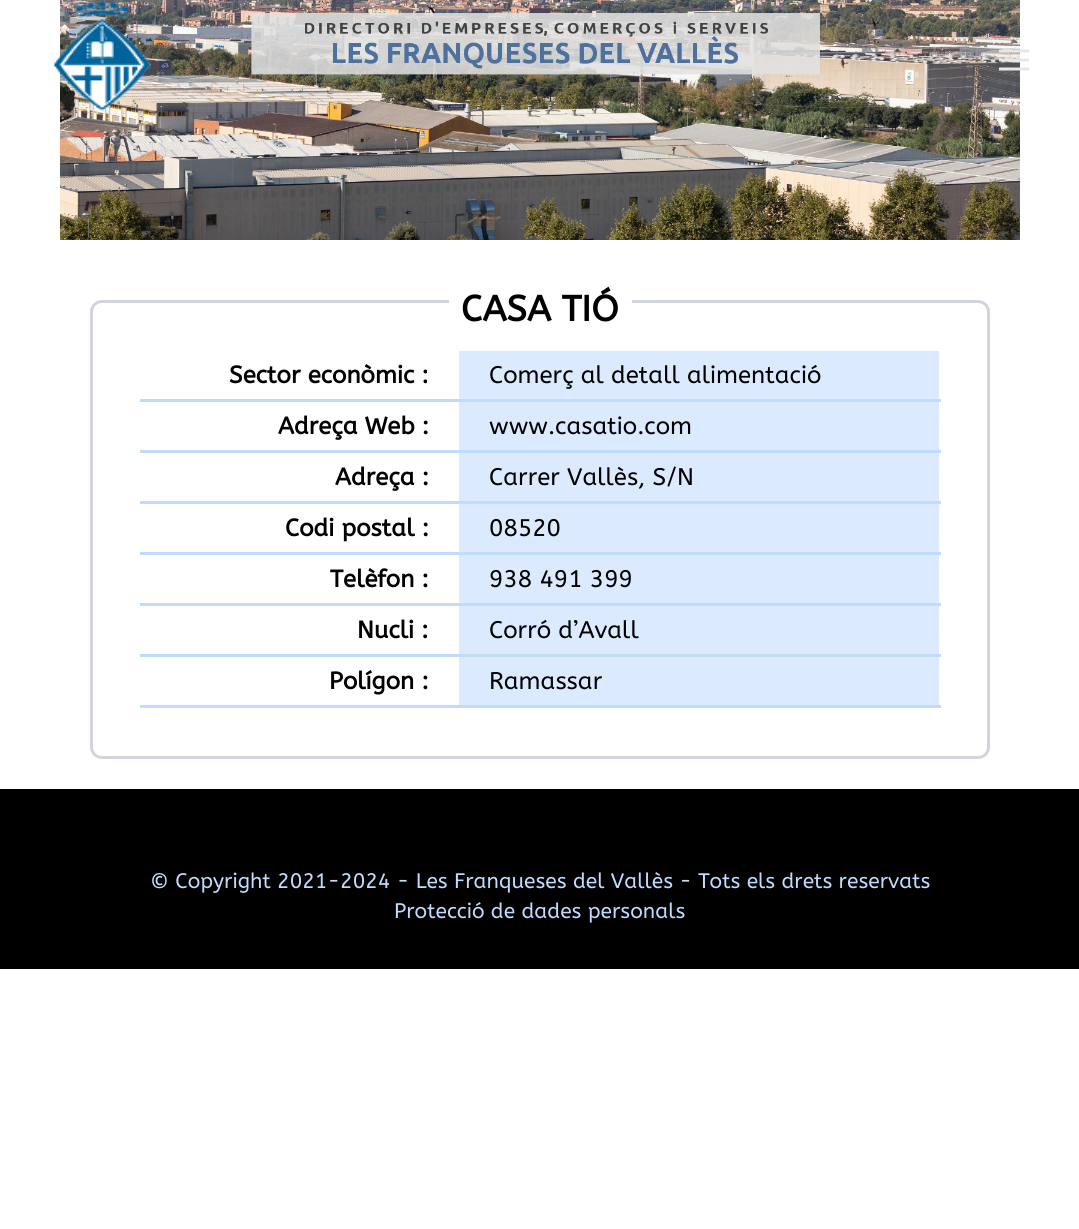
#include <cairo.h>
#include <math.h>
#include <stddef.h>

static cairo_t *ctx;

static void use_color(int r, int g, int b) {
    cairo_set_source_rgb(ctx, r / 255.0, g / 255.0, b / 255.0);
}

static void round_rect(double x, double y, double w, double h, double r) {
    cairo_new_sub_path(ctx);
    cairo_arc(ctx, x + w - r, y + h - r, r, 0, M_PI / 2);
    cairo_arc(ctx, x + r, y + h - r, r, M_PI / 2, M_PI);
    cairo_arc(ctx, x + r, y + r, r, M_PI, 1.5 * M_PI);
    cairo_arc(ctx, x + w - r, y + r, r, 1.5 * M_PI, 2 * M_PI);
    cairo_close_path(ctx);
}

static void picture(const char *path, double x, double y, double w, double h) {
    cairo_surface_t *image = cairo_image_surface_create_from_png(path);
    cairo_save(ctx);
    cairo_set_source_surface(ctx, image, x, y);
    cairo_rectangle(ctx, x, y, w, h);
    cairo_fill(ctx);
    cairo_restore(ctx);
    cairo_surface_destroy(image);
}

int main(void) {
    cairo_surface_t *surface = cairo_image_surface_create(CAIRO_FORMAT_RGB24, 1079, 1229);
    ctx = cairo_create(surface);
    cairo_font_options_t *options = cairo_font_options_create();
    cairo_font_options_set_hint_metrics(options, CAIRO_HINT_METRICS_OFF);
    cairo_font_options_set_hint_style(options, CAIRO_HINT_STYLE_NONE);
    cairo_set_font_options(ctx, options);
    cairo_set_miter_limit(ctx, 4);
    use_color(255, 255, 255);
    cairo_paint(ctx);
    picture("img3.png", 60, 0, 960, 240);
    picture("img1.png", 52, 0, 100, 111);
    picture("img2.png", 999, 49, 30, 22);
    round_rect(91.5, 301.5, 897, 456, 10.5);
    use_color(209, 213, 219);
    cairo_set_line_width(ctx, 3);
    cairo_stroke(ctx);
    use_color(255, 255, 255);
    cairo_rectangle(ctx, 449, 300, 183, 3);
    cairo_fill(ctx);
    cairo_select_font_face(ctx, "ABeeZee", CAIRO_FONT_SLANT_NORMAL, CAIRO_FONT_WEIGHT_BOLD);
    cairo_set_font_size(ctx, 36);
    use_color(0, 0, 0);
    cairo_move_to(ctx, 461, 321);
    cairo_show_text(ctx, "CASA TIÓ");
    use_color(191, 219, 254);
    cairo_rectangle(ctx, 140, 399, 801, 3);
    cairo_fill(ctx);
    cairo_set_font_size(ctx, 24);
    use_color(0, 0, 0);
    cairo_move_to(ctx, 229, 383);
    cairo_show_text(ctx, "Sector econòmic :");
    use_color(219, 234, 254);
    cairo_rectangle(ctx, 459, 351, 480, 48);
    cairo_fill(ctx);
    cairo_select_font_face(ctx, "ABeeZee", CAIRO_FONT_SLANT_NORMAL, CAIRO_FONT_WEIGHT_NORMAL);
    use_color(0, 0, 0);
    cairo_move_to(ctx, 489, 383);
    cairo_show_text(ctx, "Comerç al detall alimentació");
    use_color(191, 219, 254);
    cairo_rectangle(ctx, 140, 450, 801, 3);
    cairo_fill(ctx);
    cairo_select_font_face(ctx, "ABeeZee", CAIRO_FONT_SLANT_NORMAL, CAIRO_FONT_WEIGHT_BOLD);
    use_color(0, 0, 0);
    cairo_move_to(ctx, 278, 434);
    cairo_show_text(ctx, "Adreça Web :");
    use_color(219, 234, 254);
    cairo_rectangle(ctx, 459, 402, 480, 48);
    cairo_fill(ctx);
    cairo_select_font_face(ctx, "ABeeZee", CAIRO_FONT_SLANT_NORMAL, CAIRO_FONT_WEIGHT_NORMAL);
    use_color(0, 0, 0);
    cairo_move_to(ctx, 489, 434);
    cairo_show_text(ctx, "www.casatio.com");
    use_color(191, 219, 254);
    cairo_rectangle(ctx, 140, 501, 801, 3);
    cairo_fill(ctx);
    cairo_select_font_face(ctx, "ABeeZee", CAIRO_FONT_SLANT_NORMAL, CAIRO_FONT_WEIGHT_BOLD);
    use_color(0, 0, 0);
    cairo_move_to(ctx, 335, 485);
    cairo_show_text(ctx, "Adreça :");
    use_color(219, 234, 254);
    cairo_rectangle(ctx, 459, 453, 480, 48);
    cairo_fill(ctx);
    cairo_select_font_face(ctx, "ABeeZee", CAIRO_FONT_SLANT_NORMAL, CAIRO_FONT_WEIGHT_NORMAL);
    use_color(0, 0, 0);
    cairo_move_to(ctx, 489, 485);
    cairo_show_text(ctx, "Carrer Vallès, S/N");
    use_color(191, 219, 254);
    cairo_rectangle(ctx, 140, 552, 801, 3);
    cairo_fill(ctx);
    cairo_select_font_face(ctx, "ABeeZee", CAIRO_FONT_SLANT_NORMAL, CAIRO_FONT_WEIGHT_BOLD);
    use_color(0, 0, 0);
    cairo_move_to(ctx, 285, 536);
    cairo_show_text(ctx, "Codi postal :");
    use_color(219, 234, 254);
    cairo_rectangle(ctx, 459, 504, 480, 48);
    cairo_fill(ctx);
    cairo_select_font_face(ctx, "ABeeZee", CAIRO_FONT_SLANT_NORMAL, CAIRO_FONT_WEIGHT_NORMAL);
    use_color(0, 0, 0);
    cairo_move_to(ctx, 489, 536);
    cairo_show_text(ctx, "08520");
    use_color(191, 219, 254);
    cairo_rectangle(ctx, 140, 603, 801, 3);
    cairo_fill(ctx);
    cairo_select_font_face(ctx, "ABeeZee", CAIRO_FONT_SLANT_NORMAL, CAIRO_FONT_WEIGHT_BOLD);
    use_color(0, 0, 0);
    cairo_move_to(ctx, 330, 587);
    cairo_show_text(ctx, "Telèfon :");
    use_color(219, 234, 254);
    cairo_rectangle(ctx, 459, 555, 480, 48);
    cairo_fill(ctx);
    cairo_select_font_face(ctx, "ABeeZee", CAIRO_FONT_SLANT_NORMAL, CAIRO_FONT_WEIGHT_NORMAL);
    use_color(0, 0, 0);
    cairo_move_to(ctx, 489, 587);
    cairo_show_text(ctx, "938 491 399");
    use_color(191, 219, 254);
    cairo_rectangle(ctx, 140, 654, 801, 3);
    cairo_fill(ctx);
    cairo_select_font_face(ctx, "ABeeZee", CAIRO_FONT_SLANT_NORMAL, CAIRO_FONT_WEIGHT_BOLD);
    use_color(0, 0, 0);
    cairo_move_to(ctx, 357, 638);
    cairo_show_text(ctx, "Nucli :");
    use_color(219, 234, 254);
    cairo_rectangle(ctx, 459, 606, 480, 48);
    cairo_fill(ctx);
    cairo_select_font_face(ctx, "ABeeZee", CAIRO_FONT_SLANT_NORMAL, CAIRO_FONT_WEIGHT_NORMAL);
    use_color(0, 0, 0);
    cairo_move_to(ctx, 489, 638);
    cairo_show_text(ctx, "Corró d’Avall");
    use_color(191, 219, 254);
    cairo_rectangle(ctx, 140, 705, 801, 3);
    cairo_fill(ctx);
    cairo_select_font_face(ctx, "ABeeZee", CAIRO_FONT_SLANT_NORMAL, CAIRO_FONT_WEIGHT_BOLD);
    use_color(0, 0, 0);
    cairo_move_to(ctx, 329, 689);
    cairo_show_text(ctx, "Polígon :");
    use_color(219, 234, 254);
    cairo_rectangle(ctx, 459, 657, 480, 48);
    cairo_fill(ctx);
    cairo_select_font_face(ctx, "ABeeZee", CAIRO_FONT_SLANT_NORMAL, CAIRO_FONT_WEIGHT_NORMAL);
    use_color(0, 0, 0);
    cairo_move_to(ctx, 489, 689);
    cairo_show_text(ctx, "Ramassar");
    cairo_rectangle(ctx, 0, 789, 1079, 180);
    cairo_fill(ctx);
    cairo_set_font_size(ctx, 21);
    use_color(191, 219, 254);
    cairo_move_to(ctx, 150, 888);
    cairo_show_text(ctx, "© Copyright 2021-2024 - Les Franqueses del Vallès - Tots els drets reservats");
    cairo_move_to(ctx, 394, 918);
    cairo_show_text(ctx, "Protecció de dades personals");
    cairo_surface_write_to_png(surface, "result.png");
    cairo_font_options_destroy(options);
    cairo_destroy(ctx);
    cairo_surface_destroy(surface);
    return 0;
}
